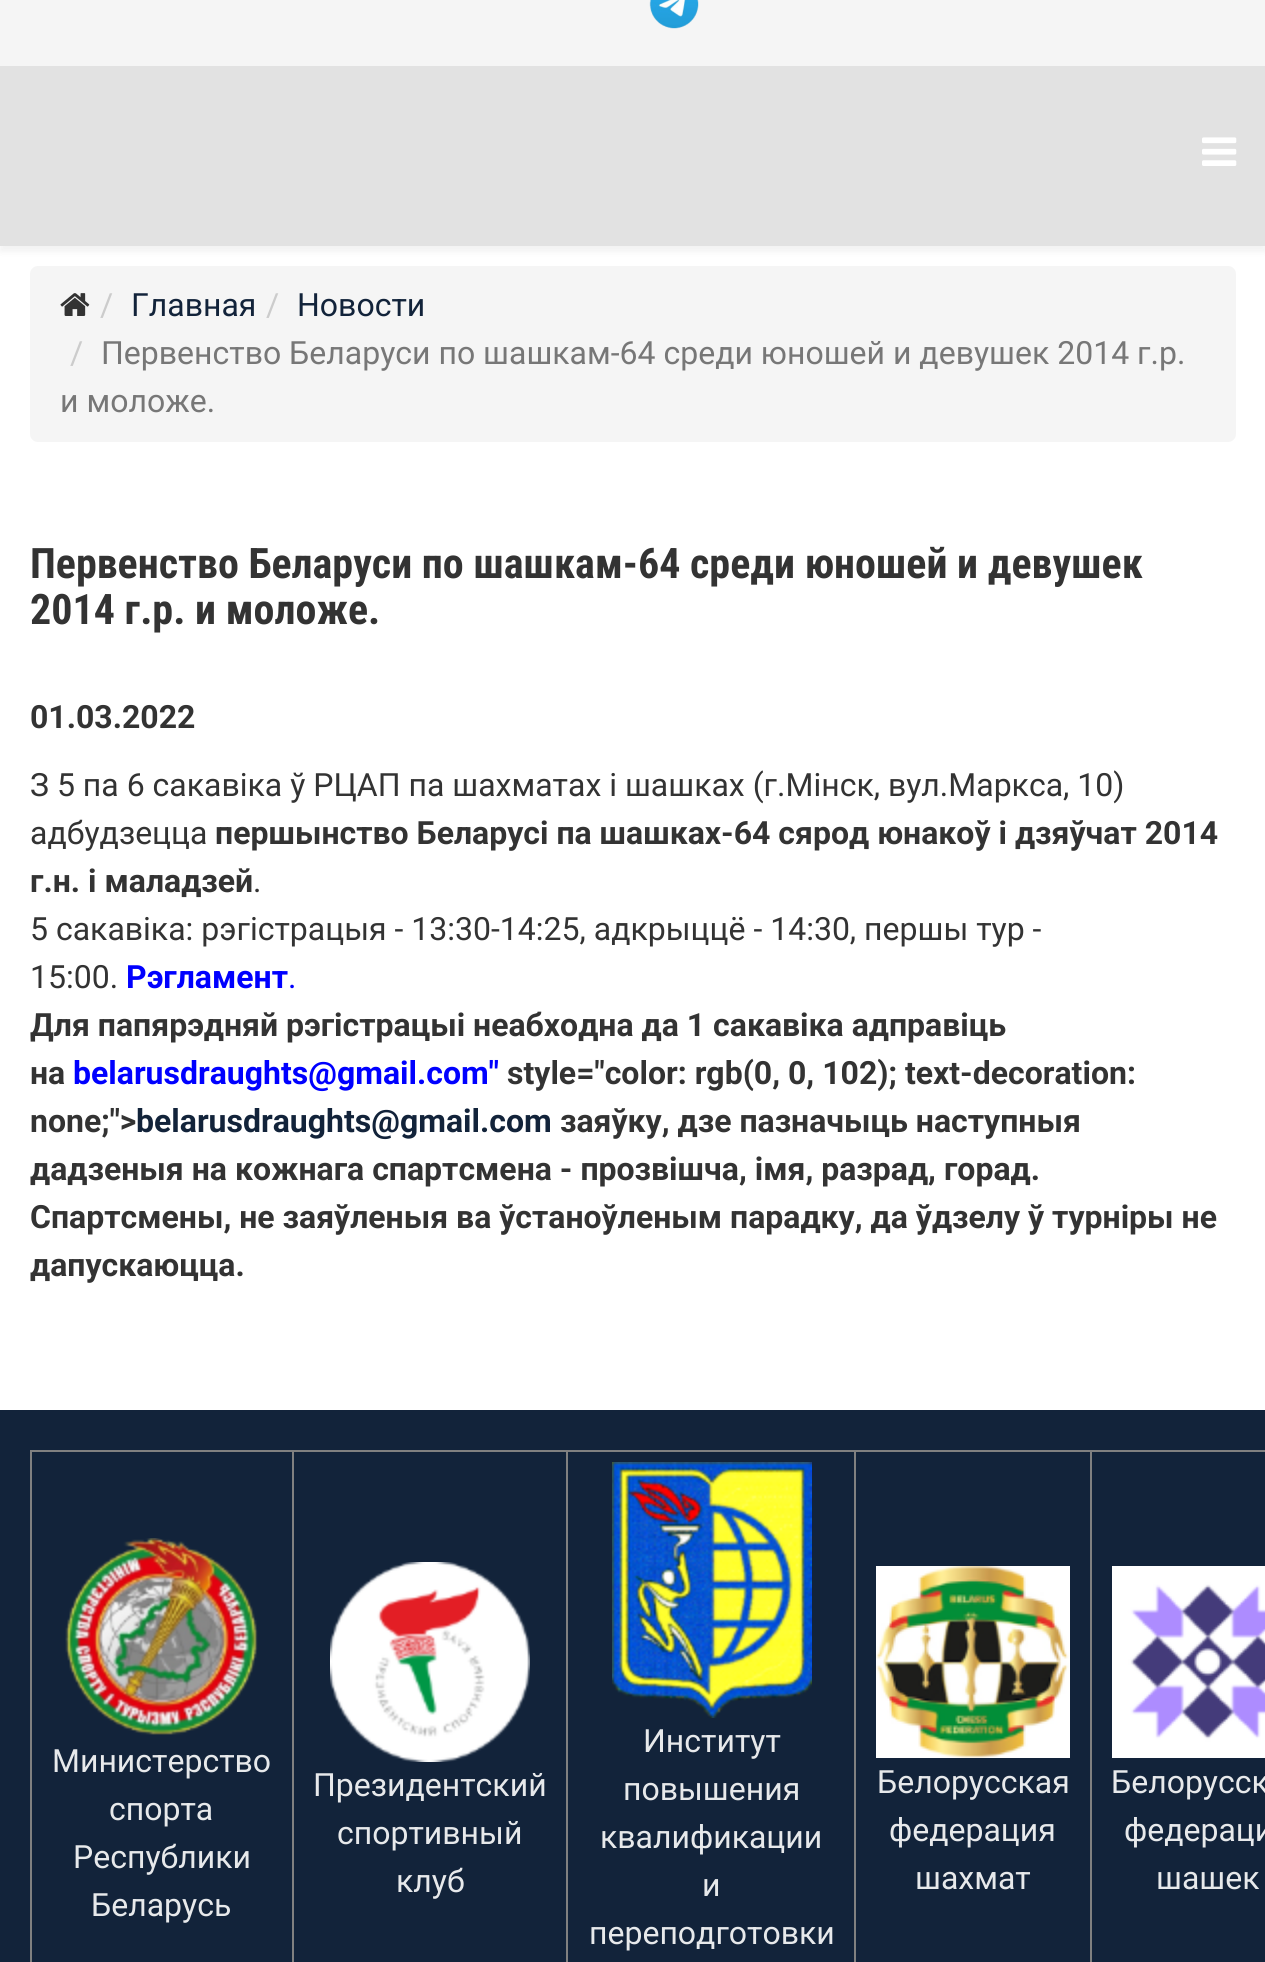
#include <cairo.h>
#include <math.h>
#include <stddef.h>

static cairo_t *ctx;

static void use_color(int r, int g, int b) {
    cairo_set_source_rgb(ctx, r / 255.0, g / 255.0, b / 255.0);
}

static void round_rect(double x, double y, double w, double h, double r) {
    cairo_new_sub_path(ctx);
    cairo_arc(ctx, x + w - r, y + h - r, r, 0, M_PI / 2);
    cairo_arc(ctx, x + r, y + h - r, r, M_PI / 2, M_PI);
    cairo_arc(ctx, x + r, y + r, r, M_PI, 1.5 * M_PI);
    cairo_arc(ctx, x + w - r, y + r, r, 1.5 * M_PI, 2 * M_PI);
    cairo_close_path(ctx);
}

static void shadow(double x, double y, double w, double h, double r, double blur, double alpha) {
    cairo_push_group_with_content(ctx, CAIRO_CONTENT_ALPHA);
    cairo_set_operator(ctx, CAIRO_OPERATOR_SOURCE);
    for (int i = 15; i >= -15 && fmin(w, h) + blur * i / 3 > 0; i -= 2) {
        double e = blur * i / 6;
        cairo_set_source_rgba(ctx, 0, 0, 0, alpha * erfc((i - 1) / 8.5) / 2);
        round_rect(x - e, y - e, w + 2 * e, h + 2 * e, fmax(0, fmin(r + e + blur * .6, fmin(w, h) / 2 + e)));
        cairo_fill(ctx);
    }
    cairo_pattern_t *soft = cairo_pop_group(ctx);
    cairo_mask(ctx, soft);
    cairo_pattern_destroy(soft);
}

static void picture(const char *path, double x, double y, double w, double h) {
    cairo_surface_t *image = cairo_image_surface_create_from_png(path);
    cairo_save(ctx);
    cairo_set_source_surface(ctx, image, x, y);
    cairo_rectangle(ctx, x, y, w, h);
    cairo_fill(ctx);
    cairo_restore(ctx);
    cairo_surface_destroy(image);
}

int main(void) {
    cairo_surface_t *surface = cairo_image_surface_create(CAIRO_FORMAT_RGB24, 1265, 1962);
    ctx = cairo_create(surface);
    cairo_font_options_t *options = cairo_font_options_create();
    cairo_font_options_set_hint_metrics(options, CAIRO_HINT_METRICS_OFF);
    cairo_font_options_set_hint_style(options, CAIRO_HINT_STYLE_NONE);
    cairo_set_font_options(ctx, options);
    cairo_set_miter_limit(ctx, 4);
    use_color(255, 255, 255);
    cairo_paint(ctx);
    use_color(245, 245, 245);
    cairo_rectangle(ctx, 0, 0, 1265, 66);
    cairo_fill(ctx);
    picture("img1.png", 649, 0, 50, 29);
    use_color(0, 0, 0);
    shadow(0, 72, 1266, 180, 0, 3, 0.05);
    use_color(226, 226, 226);
    cairo_rectangle(ctx, 0, 66, 1265, 180);
    cairo_fill(ctx);
    picture("img2.png", 1202, 137, 35, 29);
    use_color(245, 245, 245);
    round_rect(30, 266, 1206, 176, 8);
    cairo_fill(ctx);
    picture("img3.png", 60, 293, 30, 23);
    cairo_select_font_face(ctx, "Roboto", CAIRO_FONT_SLANT_NORMAL, CAIRO_FONT_WEIGHT_NORMAL);
    cairo_set_font_size(ctx, 32);
    use_color(204, 204, 204);
    cairo_move_to(ctx, 100, 316);
    cairo_show_text(ctx, "/");
    use_color(18, 35, 58);
    cairo_move_to(ctx, 131, 316);
    cairo_show_text(ctx, "Главная");
    use_color(204, 204, 204);
    cairo_move_to(ctx, 266, 316);
    cairo_show_text(ctx, "/");
    use_color(18, 35, 58);
    cairo_move_to(ctx, 297, 316);
    cairo_show_text(ctx, "Новости");
    use_color(204, 204, 204);
    cairo_move_to(ctx, 70, 364);
    cairo_show_text(ctx, "/");
    use_color(119, 119, 119);
    cairo_move_to(ctx, 101, 364);
    cairo_show_text(ctx, "Первенство Беларуси по шашкам-64 среди юношей и девушек 2014 г.р.");
    cairo_move_to(ctx, 60, 412);
    cairo_show_text(ctx, "и моложе.");
    cairo_select_font_face(ctx, "Roboto Condensed", CAIRO_FONT_SLANT_NORMAL, CAIRO_FONT_WEIGHT_BOLD);
    cairo_set_font_size(ctx, 42);
    use_color(51, 51, 51);
    cairo_move_to(ctx, 30, 578);
    cairo_show_text(ctx, "Первенство Беларуси по шашкам-64 среди юношей и девушек");
    cairo_move_to(ctx, 30, 624);
    cairo_show_text(ctx, "2014 г.р. и моложе.");
    cairo_select_font_face(ctx, "Roboto", CAIRO_FONT_SLANT_NORMAL, CAIRO_FONT_WEIGHT_BOLD);
    cairo_set_font_size(ctx, 32);
    cairo_move_to(ctx, 30, 728);
    cairo_show_text(ctx, "01.03.2022");
    cairo_select_font_face(ctx, "Roboto", CAIRO_FONT_SLANT_NORMAL, CAIRO_FONT_WEIGHT_NORMAL);
    cairo_move_to(ctx, 30, 796);
    cairo_show_text(ctx, "З 5 па 6 сакавіка ў РЦАП па шахматах і шашках (г.Мінск, вул.Маркса, 10)");
    cairo_move_to(ctx, 30, 844);
    cairo_show_text(ctx, "адбудзецца");
    cairo_select_font_face(ctx, "Roboto", CAIRO_FONT_SLANT_NORMAL, CAIRO_FONT_WEIGHT_BOLD);
    cairo_move_to(ctx, 215, 844);
    cairo_show_text(ctx, "першынство Беларусі па шашках-64 сярод юнакоў і дзяўчат 2014");
    cairo_move_to(ctx, 30, 892);
    cairo_show_text(ctx, "г.н. і маладзей");
    cairo_select_font_face(ctx, "Roboto", CAIRO_FONT_SLANT_NORMAL, CAIRO_FONT_WEIGHT_NORMAL);
    cairo_move_to(ctx, 253, 892);
    cairo_show_text(ctx, ".");
    cairo_move_to(ctx, 30, 940);
    cairo_show_text(ctx, "5 сакавіка: рэгістрацыя - 13:30-14:25, адкрыццё - 14:30, першы тур -");
    cairo_move_to(ctx, 30, 988);
    cairo_show_text(ctx, "15:00.");
    cairo_select_font_face(ctx, "Roboto", CAIRO_FONT_SLANT_NORMAL, CAIRO_FONT_WEIGHT_BOLD);
    use_color(0, 0, 255);
    cairo_move_to(ctx, 126, 988);
    cairo_show_text(ctx, "Рэгламент");
    cairo_select_font_face(ctx, "Roboto", CAIRO_FONT_SLANT_NORMAL, CAIRO_FONT_WEIGHT_NORMAL);
    cairo_move_to(ctx, 288, 988);
    cairo_show_text(ctx, ".");
    cairo_select_font_face(ctx, "Roboto", CAIRO_FONT_SLANT_NORMAL, CAIRO_FONT_WEIGHT_BOLD);
    use_color(51, 51, 51);
    cairo_move_to(ctx, 30, 1036);
    cairo_show_text(ctx, "Для папярэдняй рэгістрацыі неабходна да 1 сакавіка адправіць");
    cairo_move_to(ctx, 30, 1084);
    cairo_show_text(ctx, "на");
    use_color(0, 0, 255);
    cairo_move_to(ctx, 73, 1084);
    cairo_show_text(ctx, "belarusdraughts@gmail.com\"");
    use_color(51, 51, 51);
    cairo_move_to(ctx, 507, 1084);
    cairo_show_text(ctx, "style=\"color: rgb(0, 0, 102); text-decoration:");
    cairo_move_to(ctx, 30, 1132);
    cairo_show_text(ctx, "none;\">");
    use_color(18, 35, 58);
    cairo_move_to(ctx, 136, 1132);
    cairo_show_text(ctx, "belarusdraughts@gmail.com");
    use_color(51, 51, 51);
    cairo_move_to(ctx, 560, 1132);
    cairo_show_text(ctx, "заяўку, дзе пазначыць наступныя");
    cairo_move_to(ctx, 30, 1180);
    cairo_show_text(ctx, "дадзеныя на кожнага спартсмена - прозвішча, імя, разрад, горад.");
    cairo_move_to(ctx, 30, 1228);
    cairo_show_text(ctx, "Спартсмены, не заяўленыя ва ўстаноўленым парадку, да ўдзелу ў турніры не");
    cairo_move_to(ctx, 30, 1276);
    cairo_show_text(ctx, "дапускаюцца.");
    use_color(18, 35, 58);
    cairo_rectangle(ctx, 0, 1410, 1265, 552);
    cairo_fill(ctx);
    use_color(128, 128, 128);
    cairo_rectangle(ctx, 30, 1450, 1235, 2);
    cairo_fill(ctx);
    cairo_rectangle(ctx, 30, 1450, 2, 512);
    cairo_fill(ctx);
    picture("img4.png", 65, 1538, 193, 197);
    cairo_select_font_face(ctx, "Roboto", CAIRO_FONT_SLANT_NORMAL, CAIRO_FONT_WEIGHT_NORMAL);
    use_color(231, 233, 235);
    cairo_move_to(ctx, 52, 1772);
    cairo_show_text(ctx, "Министерство");
    cairo_move_to(ctx, 109, 1820);
    cairo_show_text(ctx, "спорта");
    cairo_move_to(ctx, 73, 1868);
    cairo_show_text(ctx, "Республики");
    cairo_move_to(ctx, 91, 1916);
    cairo_show_text(ctx, "Беларусь");
    use_color(128, 128, 128);
    cairo_rectangle(ctx, 292, 1450, 2, 512);
    cairo_fill(ctx);
    picture("img5.png", 330, 1562, 200, 200);
    use_color(231, 233, 235);
    cairo_move_to(ctx, 313, 1796);
    cairo_show_text(ctx, "Президентский");
    cairo_move_to(ctx, 337, 1844);
    cairo_show_text(ctx, "спортивный");
    cairo_move_to(ctx, 396, 1892);
    cairo_show_text(ctx, "клуб");
    use_color(128, 128, 128);
    cairo_rectangle(ctx, 566, 1450, 2, 512);
    cairo_fill(ctx);
    picture("img6.png", 612, 1462, 200, 256);
    use_color(231, 233, 235);
    cairo_move_to(ctx, 643, 1752);
    cairo_show_text(ctx, "Институт");
    cairo_move_to(ctx, 623, 1800);
    cairo_show_text(ctx, "повышения");
    cairo_move_to(ctx, 600, 1848);
    cairo_show_text(ctx, "квалификации");
    cairo_move_to(ctx, 702, 1896);
    cairo_show_text(ctx, "и");
    cairo_move_to(ctx, 589, 1944);
    cairo_show_text(ctx, "переподготовки");
    use_color(128, 128, 128);
    cairo_rectangle(ctx, 854, 1450, 2, 512);
    cairo_fill(ctx);
    picture("img7.png", 876, 1566, 194, 192);
    use_color(231, 233, 235);
    cairo_move_to(ctx, 877, 1793);
    cairo_show_text(ctx, "Белорусская");
    cairo_move_to(ctx, 889, 1841);
    cairo_show_text(ctx, "федерация");
    cairo_move_to(ctx, 915, 1889);
    cairo_show_text(ctx, "шахмат");
    use_color(128, 128, 128);
    cairo_rectangle(ctx, 1090, 1450, 2, 512);
    cairo_fill(ctx);
    picture("img8.png", 1112, 1566, 153, 192);
    use_color(231, 233, 235);
    cairo_move_to(ctx, 1111, 1793);
    cairo_show_text(ctx, "Белорусск");
    cairo_move_to(ctx, 1124, 1841);
    cairo_show_text(ctx, "федераци");
    cairo_move_to(ctx, 1156, 1889);
    cairo_show_text(ctx, "шашек");
    cairo_surface_write_to_png(surface, "result.png");
    cairo_font_options_destroy(options);
    cairo_destroy(ctx);
    cairo_surface_destroy(surface);
    return 0;
}
